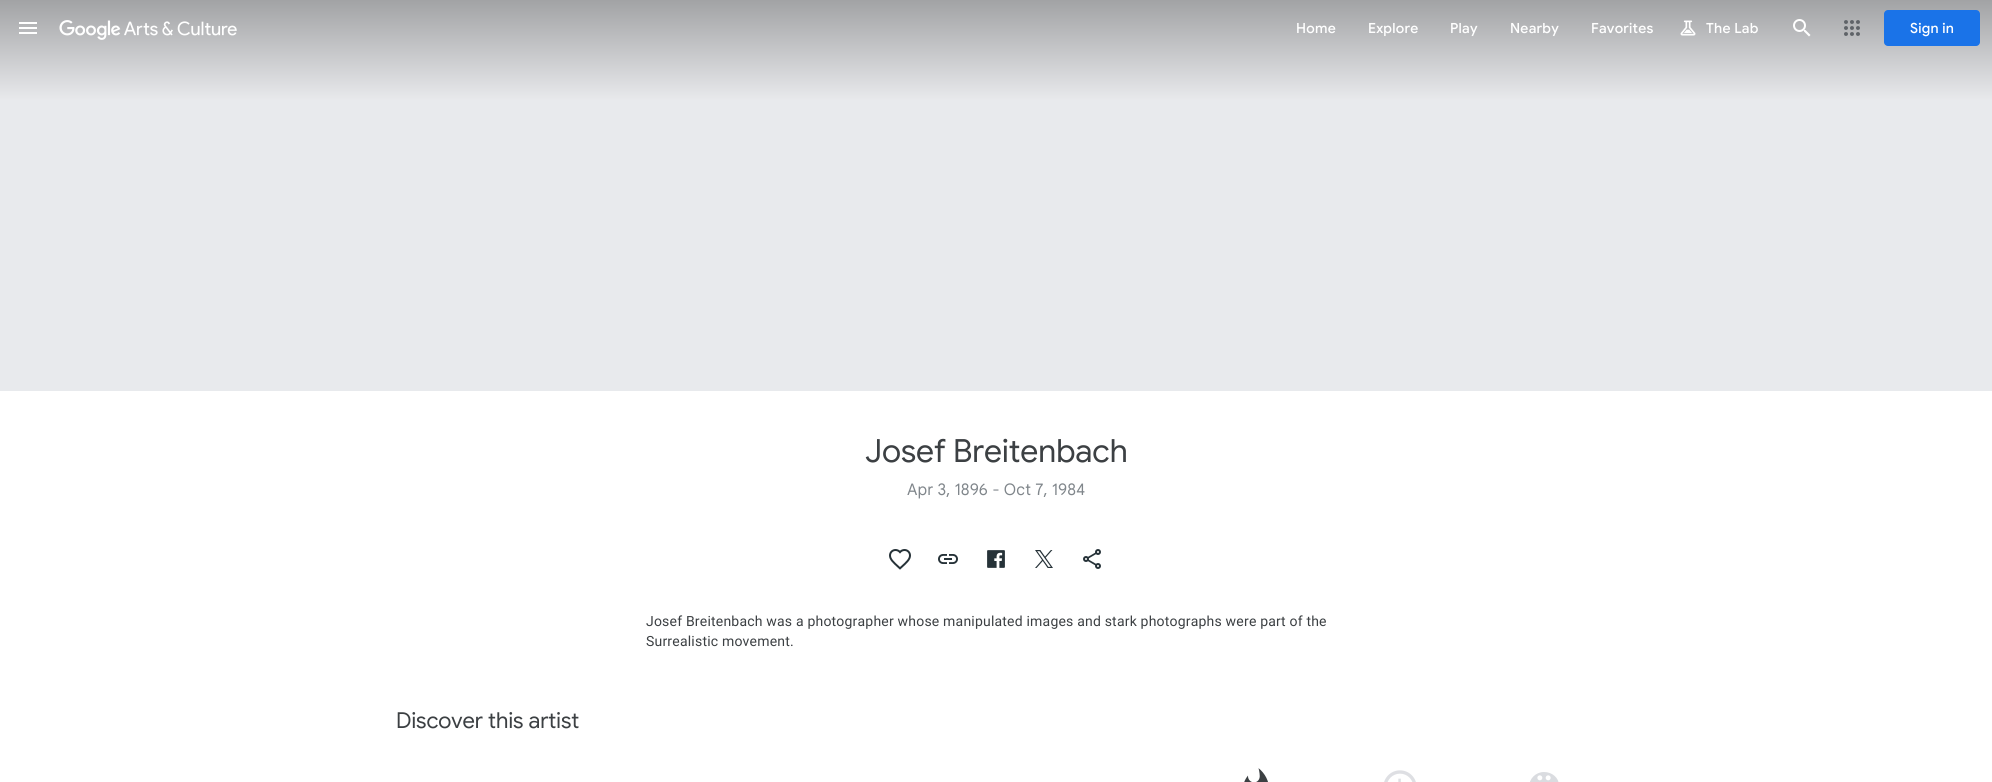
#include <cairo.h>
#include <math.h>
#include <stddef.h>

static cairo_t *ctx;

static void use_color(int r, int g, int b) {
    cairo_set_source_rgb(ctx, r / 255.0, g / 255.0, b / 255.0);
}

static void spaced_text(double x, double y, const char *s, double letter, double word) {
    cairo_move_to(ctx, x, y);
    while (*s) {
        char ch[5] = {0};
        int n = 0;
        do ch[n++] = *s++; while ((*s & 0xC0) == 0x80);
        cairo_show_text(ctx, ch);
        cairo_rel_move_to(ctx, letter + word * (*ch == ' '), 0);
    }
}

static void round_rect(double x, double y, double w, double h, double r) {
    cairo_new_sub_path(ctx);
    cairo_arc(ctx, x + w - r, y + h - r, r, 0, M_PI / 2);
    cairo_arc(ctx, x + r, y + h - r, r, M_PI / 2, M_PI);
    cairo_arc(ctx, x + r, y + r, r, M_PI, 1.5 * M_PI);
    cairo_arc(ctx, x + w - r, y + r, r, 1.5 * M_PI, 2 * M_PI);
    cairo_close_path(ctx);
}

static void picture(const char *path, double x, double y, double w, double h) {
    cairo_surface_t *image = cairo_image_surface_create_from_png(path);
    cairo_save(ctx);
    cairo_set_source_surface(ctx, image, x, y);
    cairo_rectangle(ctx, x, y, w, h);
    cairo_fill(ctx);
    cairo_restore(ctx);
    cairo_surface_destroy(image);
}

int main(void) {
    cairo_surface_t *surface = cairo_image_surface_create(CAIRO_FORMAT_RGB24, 1992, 782);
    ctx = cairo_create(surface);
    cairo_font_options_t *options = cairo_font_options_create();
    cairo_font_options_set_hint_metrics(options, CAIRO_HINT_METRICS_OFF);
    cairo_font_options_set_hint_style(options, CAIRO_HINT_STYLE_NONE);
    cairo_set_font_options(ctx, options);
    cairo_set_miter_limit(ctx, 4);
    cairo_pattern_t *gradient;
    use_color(255, 255, 255);
    cairo_paint(ctx);
    gradient = cairo_pattern_create_linear(996, 0, 996, 100);
    cairo_pattern_add_color_stop_rgba(gradient, 0, 0.635, 0.639, 0.647, 1);
    cairo_pattern_add_color_stop_rgba(gradient, 1, 0.91, 0.914, 0.925, 1);
    cairo_set_source(ctx, gradient);
    cairo_pattern_destroy(gradient);
    cairo_rectangle(ctx, 0, 0, 1992, 100);
    cairo_fill(ctx);
    picture("img1.png", 19, 22, 18, 12);
    picture("img2.png", 59, 20, 178, 20);
    cairo_select_font_face(ctx, "Google Sans Medium", CAIRO_FONT_SLANT_NORMAL, CAIRO_FONT_WEIGHT_NORMAL);
    cairo_set_font_size(ctx, 14);
    use_color(255, 255, 255);
    spaced_text(1296, 33, "Home", 0.25, 0);
    spaced_text(1368, 33, "Explore", 0.25, 0);
    spaced_text(1450, 33, "Play", 0.25, 0);
    spaced_text(1510, 33, "Nearby", 0.25, 0);
    spaced_text(1591, 33, "Favorites", 0.25, 0);
    picture("img3.png", 1680, 20, 16, 16);
    spaced_text(1706, 33, "The Lab", 0.25, 0);
    picture("img4.png", 1793, 19, 18, 18);
    picture("img5.png", 1844, 20, 16, 16);
    use_color(26, 115, 232);
    round_rect(1884, 10, 96, 36, 4);
    cairo_fill(ctx);
    use_color(255, 255, 255);
    spaced_text(1910, 33, "Sign in", 0.25, 0);
    use_color(232, 234, 237);
    cairo_rectangle(ctx, 0, 100, 1992, 291);
    cairo_fill(ctx);
    cairo_select_font_face(ctx, "Google Sans", CAIRO_FONT_SLANT_NORMAL, CAIRO_FONT_WEIGHT_NORMAL);
    cairo_set_font_size(ctx, 32);
    use_color(60, 64, 67);
    cairo_move_to(ctx, 865, 462);
    cairo_show_text(ctx, "Josef Breitenbach");
    cairo_select_font_face(ctx, "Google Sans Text", CAIRO_FONT_SLANT_NORMAL, CAIRO_FONT_WEIGHT_NORMAL);
    cairo_set_font_size(ctx, 16);
    use_color(128, 134, 139);
    spaced_text(907, 495, "Apr 3, 1896 - Oct 7, 1984", 0.1, 0);
    picture("img6.png", 889, 549, 22, 21);
    picture("img7.png", 938, 554, 20, 10);
    picture("img8.png", 987, 550, 18, 18);
    picture("img9.png", 1035, 550, 18, 18);
    picture("img10.png", 1083, 549, 18, 20);
    cairo_select_font_face(ctx, "Roboto", CAIRO_FONT_SLANT_NORMAL, CAIRO_FONT_WEIGHT_NORMAL);
    cairo_set_font_size(ctx, 14);
    use_color(60, 64, 67);
    spaced_text(646, 626, "Josef Breitenbach was a photographer whose manipulated images and stark photographs were part of the", 0.2, 0);
    spaced_text(646, 646, "Surrealistic movement.", 0.2, 0);
    cairo_select_font_face(ctx, "Google Sans", CAIRO_FONT_SLANT_NORMAL, CAIRO_FONT_WEIGHT_NORMAL);
    cairo_set_font_size(ctx, 22);
    cairo_move_to(ctx, 396, 728);
    cairo_show_text(ctx, "Discover this artist");
    picture("img11.png", 1244, 768, 24, 14);
    picture("img12.png", 1384, 770, 32, 12);
    picture("img13.png", 1530, 772, 29, 10);
    cairo_surface_write_to_png(surface, "result.png");
    cairo_font_options_destroy(options);
    cairo_destroy(ctx);
    cairo_surface_destroy(surface);
    return 0;
}
